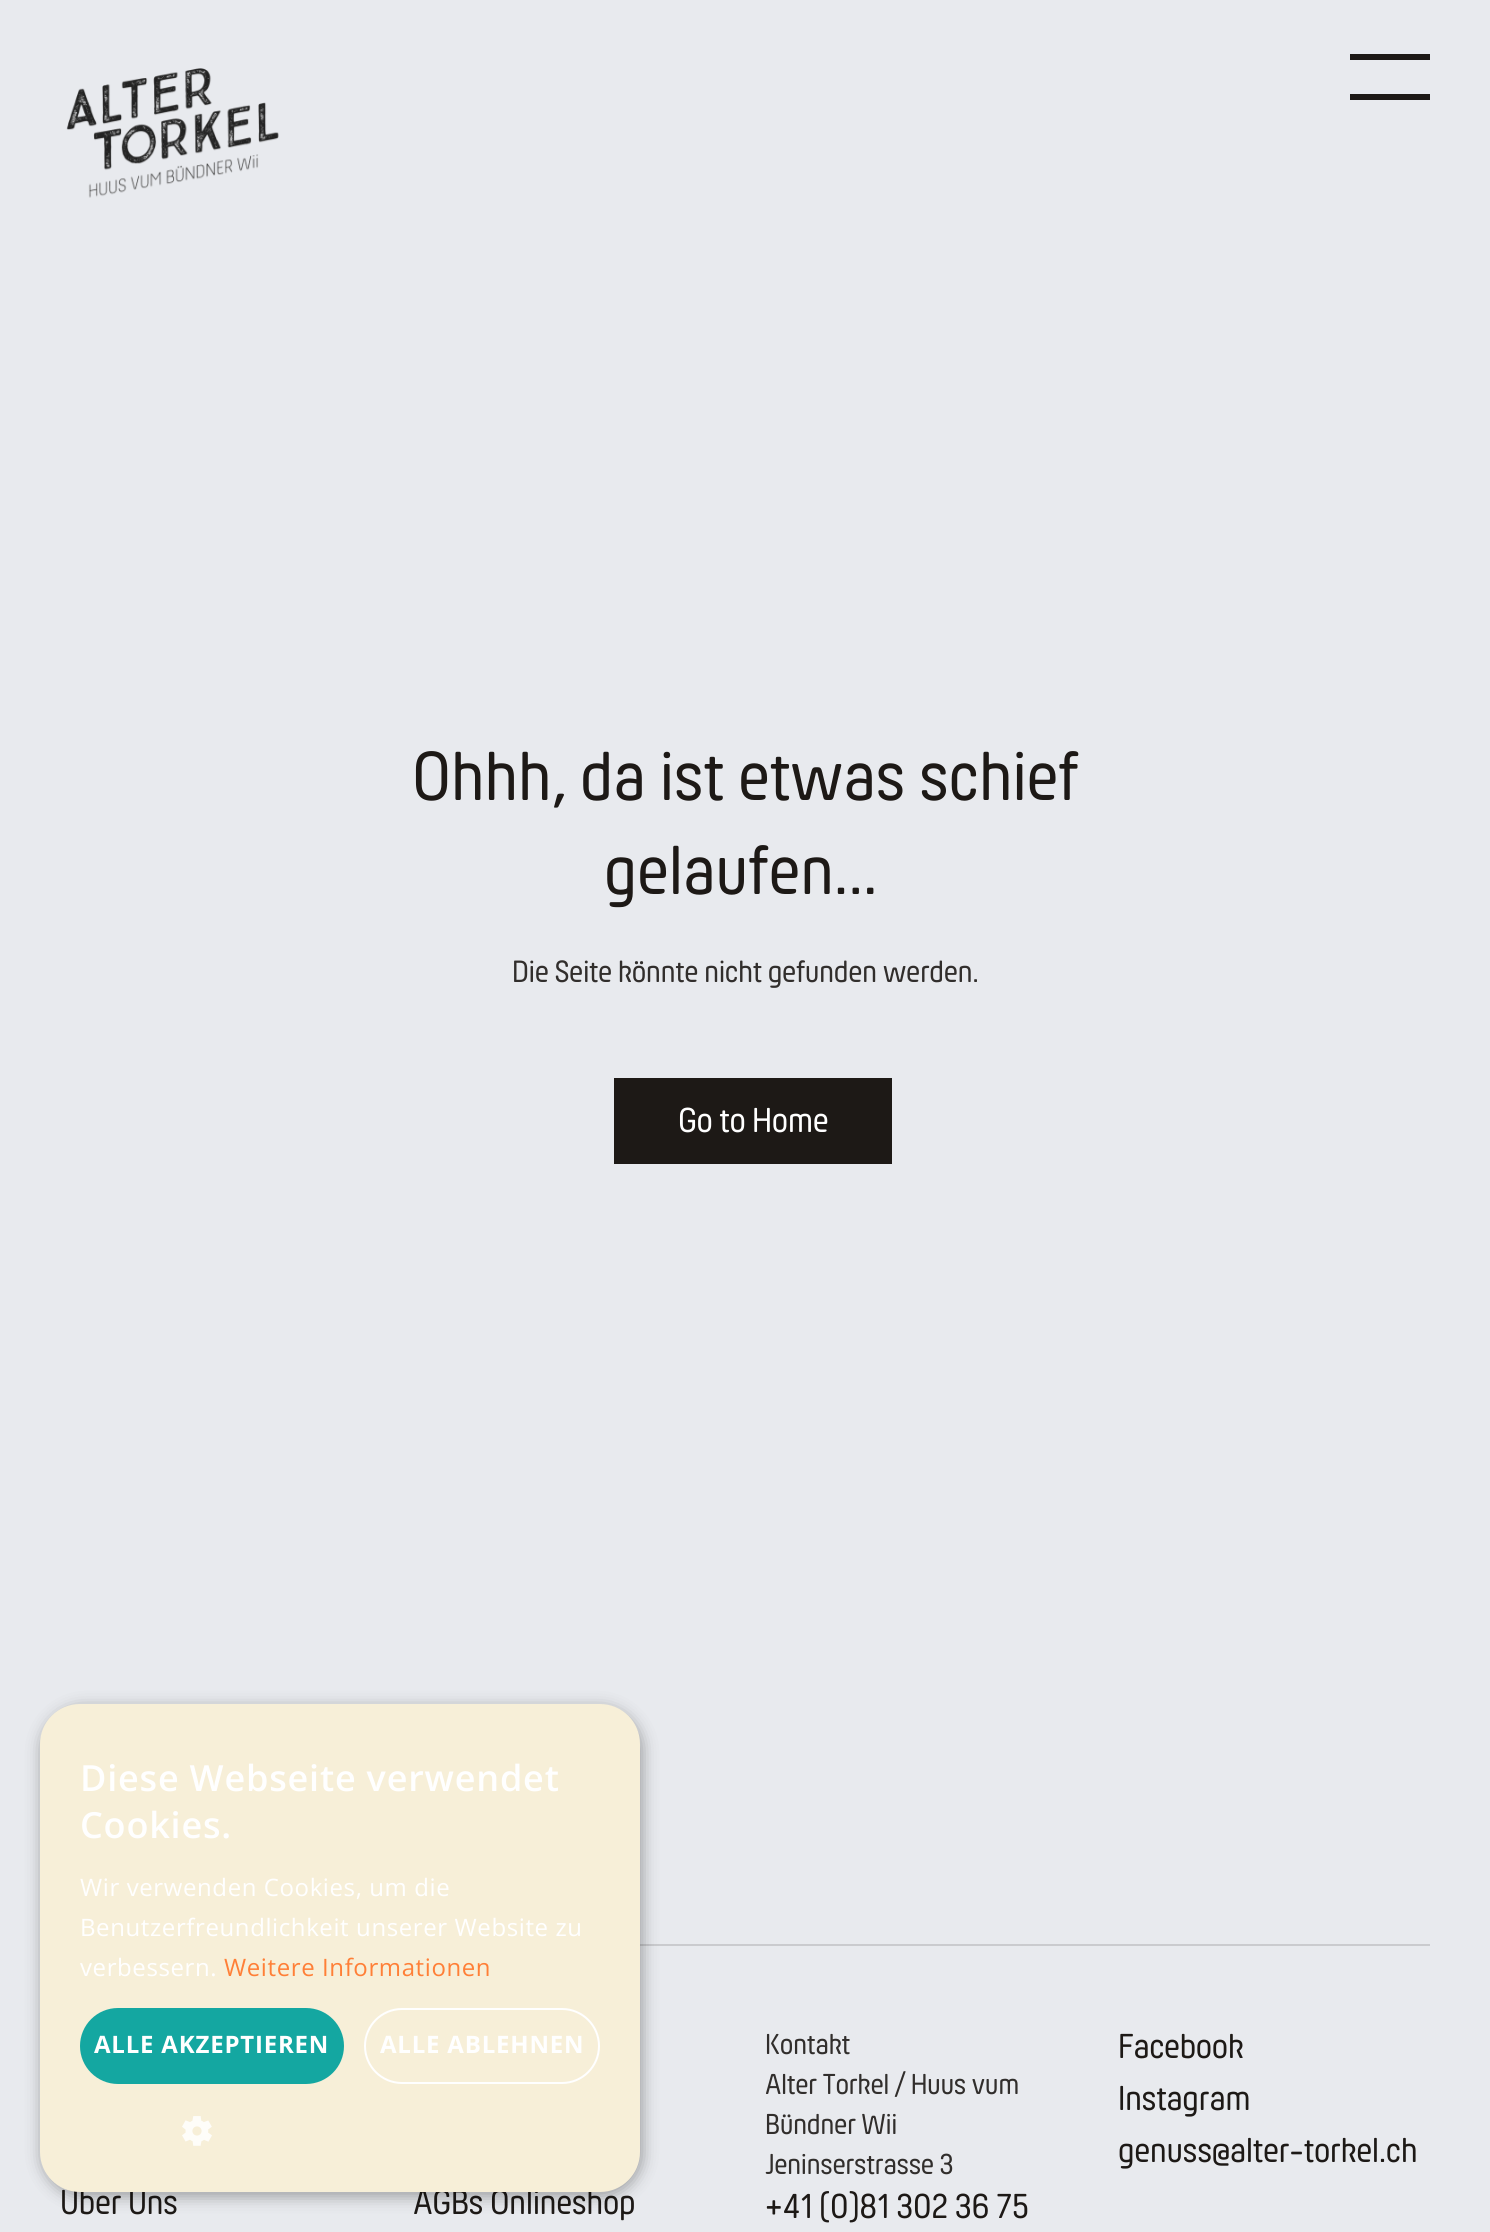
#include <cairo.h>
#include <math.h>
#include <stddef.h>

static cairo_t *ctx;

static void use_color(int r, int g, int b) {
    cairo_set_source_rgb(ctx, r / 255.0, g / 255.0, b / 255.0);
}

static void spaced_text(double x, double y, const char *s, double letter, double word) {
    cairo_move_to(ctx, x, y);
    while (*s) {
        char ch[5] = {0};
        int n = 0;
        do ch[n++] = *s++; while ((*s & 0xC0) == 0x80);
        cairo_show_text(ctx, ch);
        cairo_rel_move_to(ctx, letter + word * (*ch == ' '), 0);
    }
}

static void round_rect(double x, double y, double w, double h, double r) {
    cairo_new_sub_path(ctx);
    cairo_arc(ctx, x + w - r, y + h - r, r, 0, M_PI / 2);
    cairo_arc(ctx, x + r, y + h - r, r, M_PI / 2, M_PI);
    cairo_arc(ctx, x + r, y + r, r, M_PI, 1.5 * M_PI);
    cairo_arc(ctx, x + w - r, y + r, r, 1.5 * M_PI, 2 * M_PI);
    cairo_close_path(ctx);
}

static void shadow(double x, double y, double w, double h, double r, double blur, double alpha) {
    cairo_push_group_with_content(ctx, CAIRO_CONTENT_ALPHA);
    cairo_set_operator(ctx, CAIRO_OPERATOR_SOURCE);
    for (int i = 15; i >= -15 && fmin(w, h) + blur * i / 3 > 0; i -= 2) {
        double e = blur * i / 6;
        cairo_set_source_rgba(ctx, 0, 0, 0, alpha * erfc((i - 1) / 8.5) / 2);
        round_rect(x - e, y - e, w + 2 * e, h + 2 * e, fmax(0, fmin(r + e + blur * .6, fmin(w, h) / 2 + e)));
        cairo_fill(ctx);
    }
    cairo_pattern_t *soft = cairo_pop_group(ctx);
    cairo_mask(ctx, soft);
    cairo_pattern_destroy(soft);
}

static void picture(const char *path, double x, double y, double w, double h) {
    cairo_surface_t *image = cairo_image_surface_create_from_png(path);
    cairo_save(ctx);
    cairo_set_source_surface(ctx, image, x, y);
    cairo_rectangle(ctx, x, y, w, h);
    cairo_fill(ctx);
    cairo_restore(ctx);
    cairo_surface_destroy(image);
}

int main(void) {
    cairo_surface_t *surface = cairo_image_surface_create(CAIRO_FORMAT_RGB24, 1490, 2232);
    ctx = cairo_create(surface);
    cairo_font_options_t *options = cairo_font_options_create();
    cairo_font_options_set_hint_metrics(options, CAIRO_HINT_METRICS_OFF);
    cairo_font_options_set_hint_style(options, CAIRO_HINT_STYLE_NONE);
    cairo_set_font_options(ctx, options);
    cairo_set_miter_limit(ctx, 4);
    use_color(232, 234, 238);
    cairo_paint(ctx);
    picture("img1.png", 66, 68, 213, 130);
    use_color(29, 25, 22);
    cairo_rectangle(ctx, 1350, 54, 80, 6);
    cairo_fill(ctx);
    cairo_rectangle(ctx, 1350, 94, 80, 6);
    cairo_fill(ctx);
    cairo_select_font_face(ctx, "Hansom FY", CAIRO_FONT_SLANT_NORMAL, CAIRO_FONT_WEIGHT_NORMAL);
    cairo_set_font_size(ctx, 72);
    spaced_text(412, 800, "Ohhh, da ist etwas schief", -0.4, 0);
    spaced_text(604, 894, "gelaufen...", -0.4, 0);
    cairo_set_font_size(ctx, 32);
    use_color(49, 46, 44);
    spaced_text(512, 982, "Die Seite könnte nicht gefunden werden.", -0.4, 0);
    use_color(29, 25, 22);
    cairo_rectangle(ctx, 614, 1078, 278, 86);
    cairo_fill(ctx);
    cairo_set_font_size(ctx, 36);
    use_color(255, 255, 255);
    spaced_text(678, 1132, "Go to Home", -0.4, 0);
    use_color(202, 203, 206);
    cairo_rectangle(ctx, 640, 1944, 790, 2);
    cairo_fill(ctx);
    cairo_set_font_size(ctx, 30);
    use_color(49, 46, 44);
    spaced_text(765, 2054, "Kontakt", -0.4, 0);
    spaced_text(765, 2094, "Alter Torkel / Huus vum", -0.4, 0);
    spaced_text(765, 2134, "Bündner Wii", -0.4, 0);
    spaced_text(765, 2174, "Jeninserstrasse 3", -0.4, 0);
    cairo_set_font_size(ctx, 36);
    use_color(29, 25, 22);
    spaced_text(765, 2218, "+41 (0)81 302 36 75", -0.4, 0);
    spaced_text(1118, 2058, "Facebook", -0.4, 0);
    spaced_text(1118, 2110, "Instagram", -0.4, 0);
    spaced_text(1118, 2162, "genuss@alter-torkel.ch", -0.4, 0);
    spaced_text(60, 2214, "Über Uns", -0.4, 0);
    spaced_text(413, 2214, "AGBs Onlineshop", -0.4, 0);
    use_color(0, 0, 0);
    shadow(42, 1708, 600, 488, 40, 8, 0.35);
    use_color(247, 239, 216);
    round_rect(40, 1704, 600, 488, 40);
    cairo_fill(ctx);
    cairo_select_font_face(ctx, "Open Sans SemiBold", CAIRO_FONT_SLANT_NORMAL, CAIRO_FONT_WEIGHT_NORMAL);
    use_color(255, 255, 255);
    spaced_text(80, 1791, "Diese Webseite verwendet", 0.8, 0);
    spaced_text(80, 1838, "Cookies.", 0.8, 0);
    cairo_select_font_face(ctx, "Open Sans", CAIRO_FONT_SLANT_NORMAL, CAIRO_FONT_WEIGHT_NORMAL);
    cairo_set_font_size(ctx, 24);
    spaced_text(80, 1896, "Wir verwenden Cookies, um die", 0.6, 0);
    spaced_text(80, 1936, "Benutzerfreundlichkeit unserer Website zu", 0.6, 0);
    spaced_text(80, 1976, "verbessern.", 0.6, 0);
    use_color(255, 127, 55);
    spaced_text(224, 1976, "Weitere Informationen", 0.6, 0);
    use_color(20, 167, 161);
    round_rect(80, 2008, 264, 76, 38);
    cairo_fill(ctx);
    cairo_select_font_face(ctx, "Open Sans", CAIRO_FONT_SLANT_NORMAL, CAIRO_FONT_WEIGHT_BOLD);
    use_color(255, 255, 255);
    spaced_text(94, 2053, "ALLE AKZEPTIEREN", 0.8, 0);
    round_rect(365, 2009, 234, 74, 37);
    cairo_stroke(ctx);
    spaced_text(380, 2053, "ALLE ABLEHNEN", 0.8, 0);
    picture("img2.png", 182, 2116, 30, 30);
    cairo_surface_write_to_png(surface, "result.png");
    cairo_font_options_destroy(options);
    cairo_destroy(ctx);
    cairo_surface_destroy(surface);
    return 0;
}
